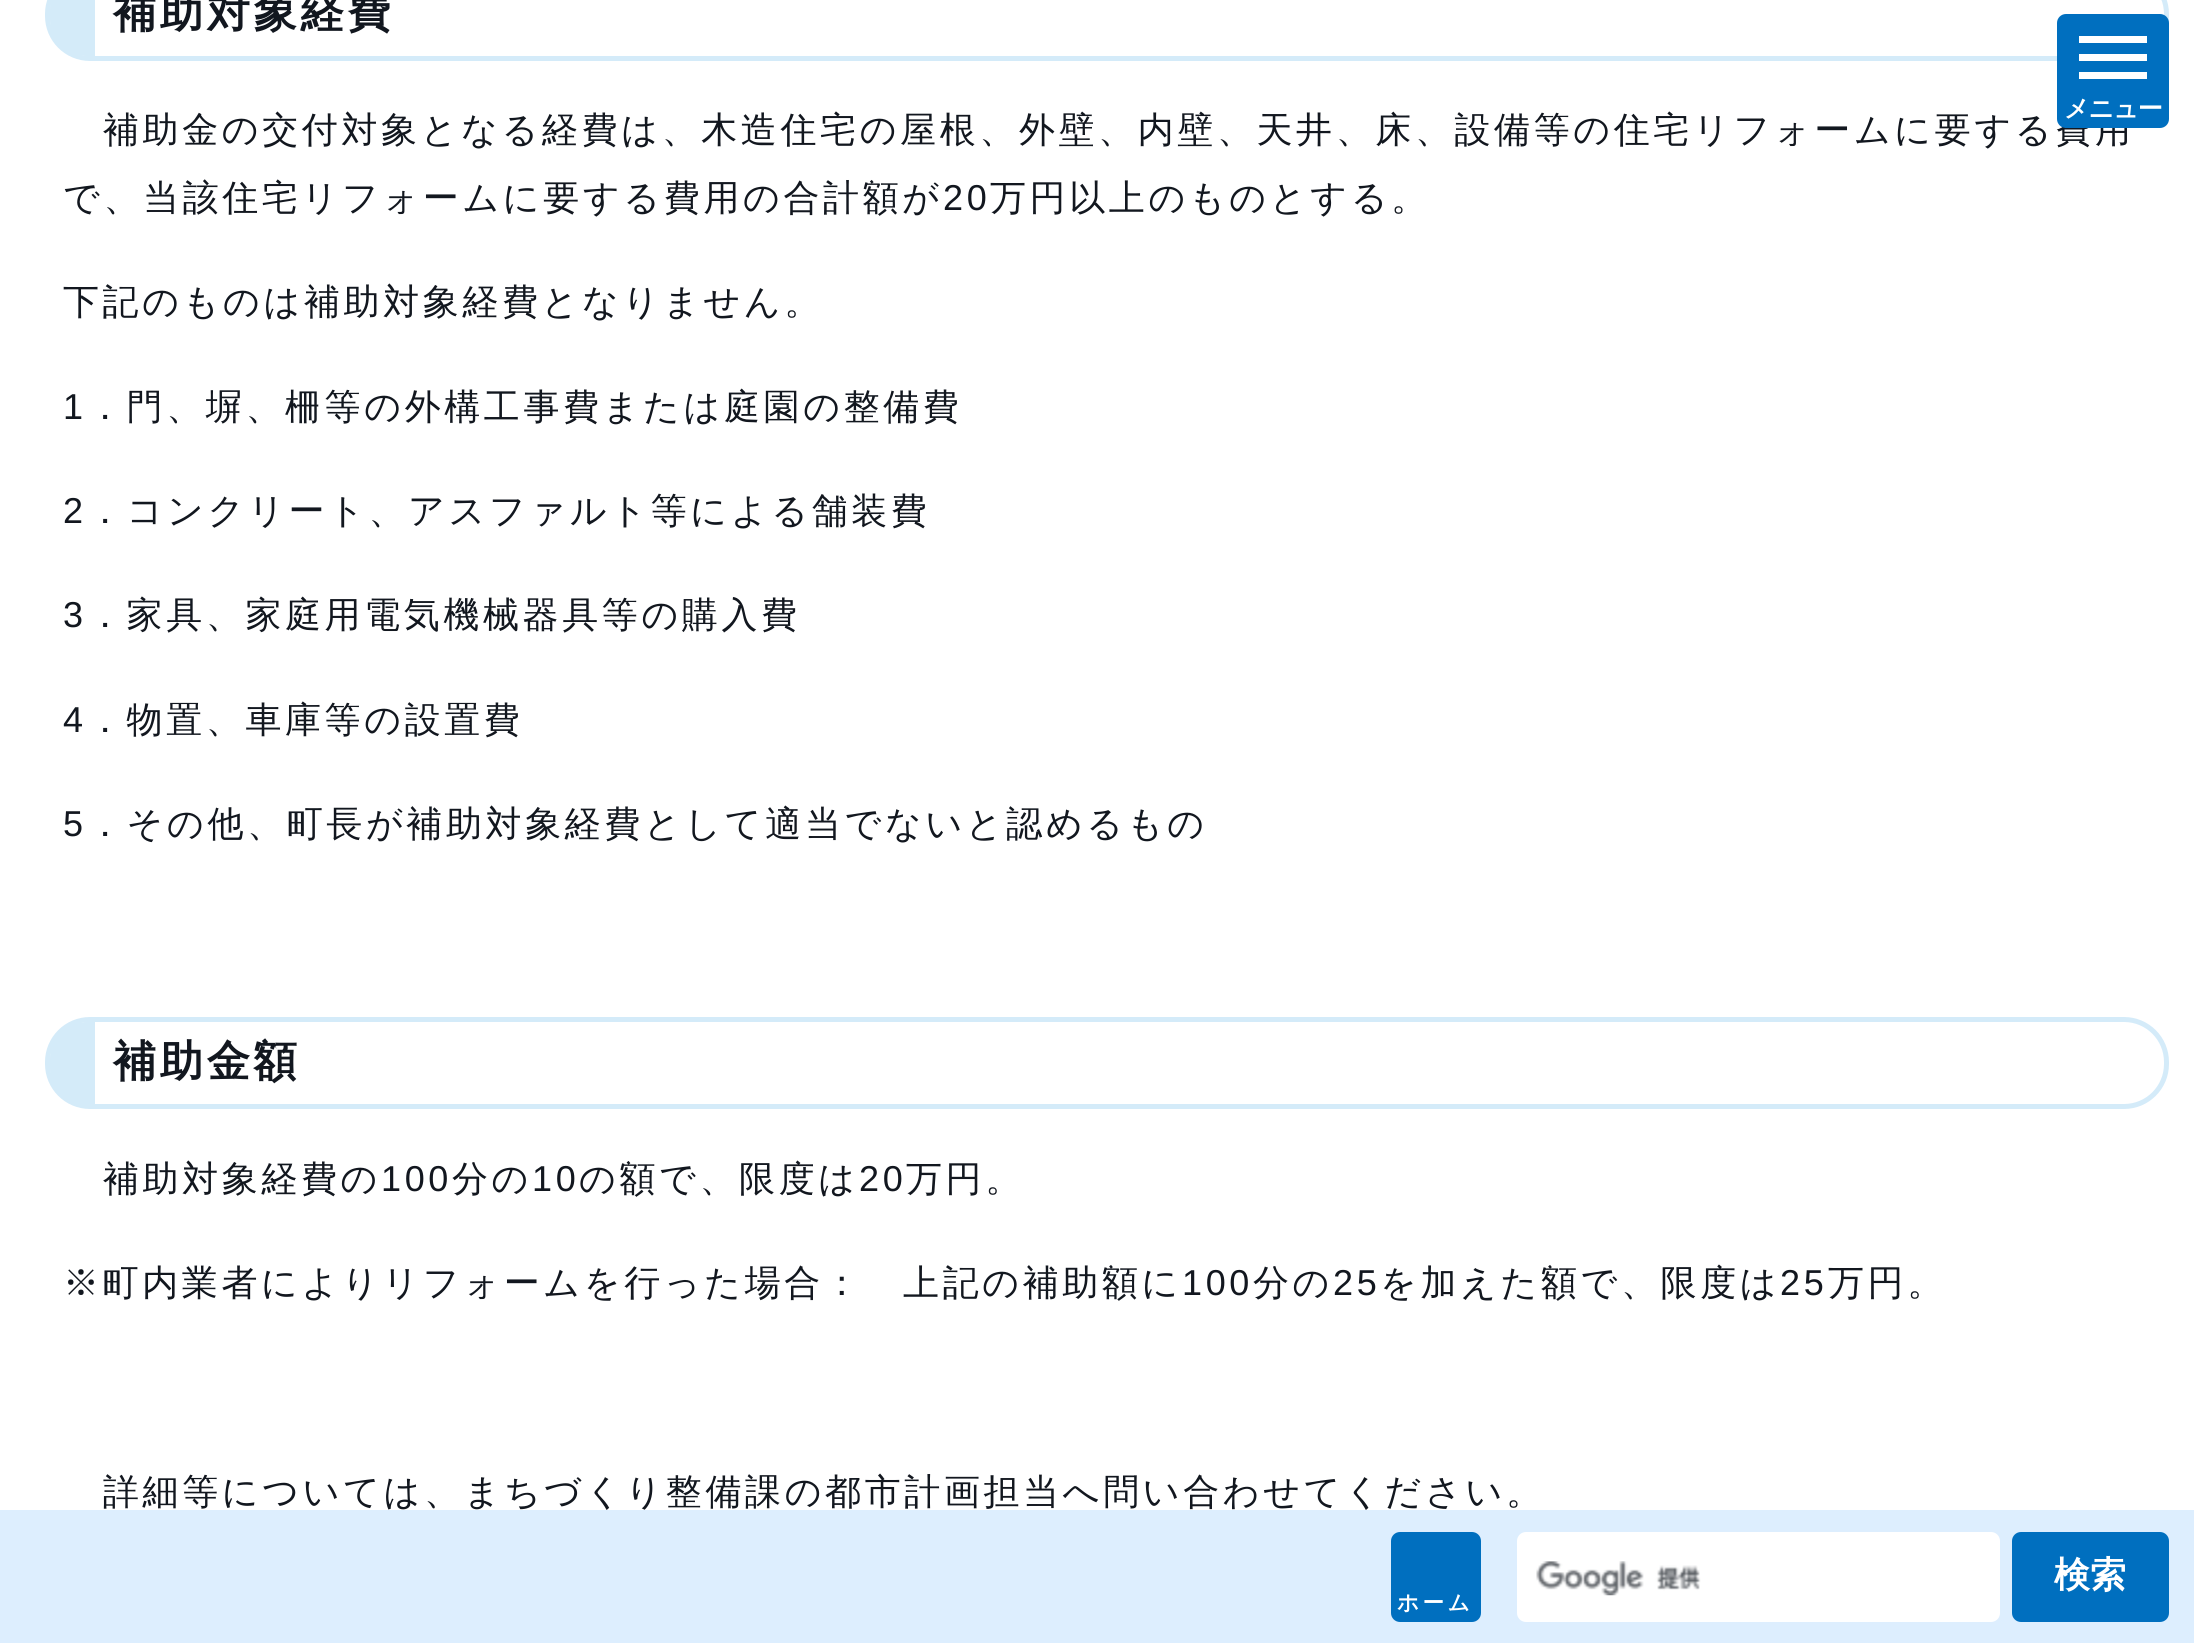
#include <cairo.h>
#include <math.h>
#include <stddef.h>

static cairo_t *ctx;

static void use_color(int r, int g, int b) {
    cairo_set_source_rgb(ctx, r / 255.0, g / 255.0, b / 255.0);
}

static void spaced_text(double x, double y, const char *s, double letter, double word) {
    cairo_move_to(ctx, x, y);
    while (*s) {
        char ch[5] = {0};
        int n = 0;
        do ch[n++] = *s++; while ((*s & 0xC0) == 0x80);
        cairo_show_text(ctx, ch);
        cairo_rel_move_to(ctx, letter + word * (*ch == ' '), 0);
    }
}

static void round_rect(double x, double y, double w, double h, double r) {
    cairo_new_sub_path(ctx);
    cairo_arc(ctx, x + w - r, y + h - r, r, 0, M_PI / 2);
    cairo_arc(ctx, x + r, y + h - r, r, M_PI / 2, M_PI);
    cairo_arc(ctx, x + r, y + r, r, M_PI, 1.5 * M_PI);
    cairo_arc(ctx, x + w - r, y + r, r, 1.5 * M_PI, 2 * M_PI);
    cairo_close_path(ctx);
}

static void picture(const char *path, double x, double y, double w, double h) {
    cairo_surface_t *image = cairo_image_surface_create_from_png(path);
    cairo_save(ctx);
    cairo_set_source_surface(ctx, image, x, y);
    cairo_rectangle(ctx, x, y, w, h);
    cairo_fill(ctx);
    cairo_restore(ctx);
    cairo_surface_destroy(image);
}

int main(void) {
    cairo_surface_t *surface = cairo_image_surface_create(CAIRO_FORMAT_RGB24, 2194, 1643);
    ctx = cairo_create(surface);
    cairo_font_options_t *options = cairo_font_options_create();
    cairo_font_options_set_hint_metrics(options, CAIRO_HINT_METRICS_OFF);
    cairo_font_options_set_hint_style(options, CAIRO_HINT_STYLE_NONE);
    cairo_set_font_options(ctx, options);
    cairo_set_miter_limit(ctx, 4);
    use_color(255, 255, 255);
    cairo_paint(ctx);
    round_rect(47.5, -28.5, 2119, 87, 42.5);
    use_color(212, 235, 249);
    cairo_set_line_width(ctx, 5);
    cairo_stroke(ctx);
    cairo_new_path(ctx);
    cairo_move_to(ctx, 86, -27);
    cairo_line_to(ctx, 95, -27);
    cairo_line_to(ctx, 95, 56);
    cairo_line_to(ctx, 86, 56);
    cairo_curve_to(ctx, 66, 56, 50, 40, 50, 20);
    cairo_line_to(ctx, 50, 9);
    cairo_curve_to(ctx, 50, -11, 66, -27, 86, -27);
    cairo_close_path(ctx);
    cairo_fill(ctx);
    cairo_select_font_face(ctx, "WenQuanYi Zen Hei", CAIRO_FONT_SLANT_NORMAL, CAIRO_FONT_WEIGHT_BOLD);
    cairo_set_font_size(ctx, 43.25);
    use_color(18, 23, 31);
    spaced_text(113, 27, "補助対象経費", 3.6, 0);
    cairo_select_font_face(ctx, "WenQuanYi Zen Hei Medium", CAIRO_FONT_SLANT_NORMAL, CAIRO_FONT_WEIGHT_NORMAL);
    cairo_set_font_size(ctx, 36);
    spaced_text(103, 142, "補助金の交付対象となる経費は、木造住宅の屋根、外壁、内壁、天井、床、設備等の住宅リフォームに要する費用", 3.6, 0);
    spaced_text(63, 210, "で、当該住宅リフォームに要する費用の合計額が", 3.6, 0);
    cairo_select_font_face(ctx, "Liberation Sans", CAIRO_FONT_SLANT_NORMAL, CAIRO_FONT_WEIGHT_NORMAL);
    spaced_text(943, 210, "20", 3.6, 0);
    cairo_select_font_face(ctx, "WenQuanYi Zen Hei Medium", CAIRO_FONT_SLANT_NORMAL, CAIRO_FONT_WEIGHT_NORMAL);
    spaced_text(990, 210, "万円以上のものとする。", 3.6, 0);
    spaced_text(63, 314, "下記のものは補助対象経費となりません。", 3.6, 0);
    cairo_select_font_face(ctx, "Liberation Sans", CAIRO_FONT_SLANT_NORMAL, CAIRO_FONT_WEIGHT_NORMAL);
    spaced_text(63, 419, "1", 3.6, 0);
    cairo_select_font_face(ctx, "WenQuanYi Zen Hei Medium", CAIRO_FONT_SLANT_NORMAL, CAIRO_FONT_WEIGHT_NORMAL);
    spaced_text(87, 419, "．門、塀、柵等の外構工事費または庭園の整備費", 3.6, 0);
    cairo_select_font_face(ctx, "Liberation Sans", CAIRO_FONT_SLANT_NORMAL, CAIRO_FONT_WEIGHT_NORMAL);
    spaced_text(63, 523, "2", 3.6, 0);
    cairo_select_font_face(ctx, "WenQuanYi Zen Hei Medium", CAIRO_FONT_SLANT_NORMAL, CAIRO_FONT_WEIGHT_NORMAL);
    spaced_text(87, 523, "．コンクリート、アスファルト等による舗装費", 3.6, 0);
    cairo_select_font_face(ctx, "Liberation Sans", CAIRO_FONT_SLANT_NORMAL, CAIRO_FONT_WEIGHT_NORMAL);
    spaced_text(63, 627, "3", 3.6, 0);
    cairo_select_font_face(ctx, "WenQuanYi Zen Hei Medium", CAIRO_FONT_SLANT_NORMAL, CAIRO_FONT_WEIGHT_NORMAL);
    spaced_text(87, 627, "．家具、家庭用電気機械器具等の購入費", 3.6, 0);
    cairo_select_font_face(ctx, "Liberation Sans", CAIRO_FONT_SLANT_NORMAL, CAIRO_FONT_WEIGHT_NORMAL);
    spaced_text(63, 732, "4", 3.6, 0);
    cairo_select_font_face(ctx, "WenQuanYi Zen Hei Medium", CAIRO_FONT_SLANT_NORMAL, CAIRO_FONT_WEIGHT_NORMAL);
    spaced_text(87, 732, "．物置、車庫等の設置費", 3.6, 0);
    cairo_select_font_face(ctx, "Liberation Sans", CAIRO_FONT_SLANT_NORMAL, CAIRO_FONT_WEIGHT_NORMAL);
    spaced_text(63, 836, "5", 3.6, 0);
    cairo_select_font_face(ctx, "WenQuanYi Zen Hei Medium", CAIRO_FONT_SLANT_NORMAL, CAIRO_FONT_WEIGHT_NORMAL);
    spaced_text(87, 836, "．その他、町長が補助対象経費として適当でないと認めるもの", 3.6, 0);
    round_rect(47.5, 1019.5, 2119, 87, 42.5);
    use_color(212, 235, 249);
    cairo_stroke(ctx);
    cairo_new_path(ctx);
    cairo_move_to(ctx, 86, 1022);
    cairo_line_to(ctx, 95, 1022);
    cairo_line_to(ctx, 95, 1105);
    cairo_line_to(ctx, 86, 1105);
    cairo_curve_to(ctx, 66, 1105, 50, 1089, 50, 1069);
    cairo_line_to(ctx, 50, 1058);
    cairo_curve_to(ctx, 50, 1038, 66, 1022, 86, 1022);
    cairo_close_path(ctx);
    cairo_fill(ctx);
    cairo_select_font_face(ctx, "WenQuanYi Zen Hei", CAIRO_FONT_SLANT_NORMAL, CAIRO_FONT_WEIGHT_BOLD);
    cairo_set_font_size(ctx, 43.25);
    use_color(18, 23, 31);
    spaced_text(113, 1076, "補助金額", 3.6, 0);
    cairo_select_font_face(ctx, "WenQuanYi Zen Hei Medium", CAIRO_FONT_SLANT_NORMAL, CAIRO_FONT_WEIGHT_NORMAL);
    cairo_set_font_size(ctx, 36);
    spaced_text(103, 1191, "補助対象経費の", 3.6, 0);
    cairo_select_font_face(ctx, "Liberation Sans", CAIRO_FONT_SLANT_NORMAL, CAIRO_FONT_WEIGHT_NORMAL);
    spaced_text(381, 1191, "100", 3.6, 0);
    cairo_select_font_face(ctx, "WenQuanYi Zen Hei Medium", CAIRO_FONT_SLANT_NORMAL, CAIRO_FONT_WEIGHT_NORMAL);
    spaced_text(452, 1191, "分の", 3.6, 0);
    cairo_select_font_face(ctx, "Liberation Sans", CAIRO_FONT_SLANT_NORMAL, CAIRO_FONT_WEIGHT_NORMAL);
    spaced_text(532, 1191, "10", 3.6, 0);
    cairo_select_font_face(ctx, "WenQuanYi Zen Hei Medium", CAIRO_FONT_SLANT_NORMAL, CAIRO_FONT_WEIGHT_NORMAL);
    spaced_text(579, 1191, "の額で、限度は", 3.6, 0);
    cairo_select_font_face(ctx, "Liberation Sans", CAIRO_FONT_SLANT_NORMAL, CAIRO_FONT_WEIGHT_NORMAL);
    spaced_text(859, 1191, "20", 3.6, 0);
    cairo_select_font_face(ctx, "WenQuanYi Zen Hei Medium", CAIRO_FONT_SLANT_NORMAL, CAIRO_FONT_WEIGHT_NORMAL);
    spaced_text(906, 1191, "万円。", 3.6, 0);
    spaced_text(63, 1295, "※町内業者によりリフォームを行った場合：　上記の補助額に", 3.6, 0);
    cairo_select_font_face(ctx, "Liberation Sans", CAIRO_FONT_SLANT_NORMAL, CAIRO_FONT_WEIGHT_NORMAL);
    spaced_text(1182, 1295, "100", 3.6, 0);
    cairo_select_font_face(ctx, "WenQuanYi Zen Hei Medium", CAIRO_FONT_SLANT_NORMAL, CAIRO_FONT_WEIGHT_NORMAL);
    spaced_text(1253, 1295, "分の", 3.6, 0);
    cairo_select_font_face(ctx, "Liberation Sans", CAIRO_FONT_SLANT_NORMAL, CAIRO_FONT_WEIGHT_NORMAL);
    spaced_text(1333, 1295, "25", 3.6, 0);
    cairo_select_font_face(ctx, "WenQuanYi Zen Hei Medium", CAIRO_FONT_SLANT_NORMAL, CAIRO_FONT_WEIGHT_NORMAL);
    spaced_text(1380, 1295, "を加えた額で、限度は", 3.6, 0);
    cairo_select_font_face(ctx, "Liberation Sans", CAIRO_FONT_SLANT_NORMAL, CAIRO_FONT_WEIGHT_NORMAL);
    spaced_text(1780, 1295, "25", 3.6, 0);
    cairo_select_font_face(ctx, "WenQuanYi Zen Hei Medium", CAIRO_FONT_SLANT_NORMAL, CAIRO_FONT_WEIGHT_NORMAL);
    spaced_text(1828, 1295, "万円。", 3.6, 0);
    spaced_text(103, 1504, "詳細等については、まちづくり整備課の都市計画担当へ問い合わせてください。", 3.6, 0);
    use_color(0, 111, 191);
    round_rect(2057, 14, 112, 114, 9);
    cairo_fill(ctx);
    use_color(255, 255, 255);
    cairo_rectangle(ctx, 2079, 36, 68, 7);
    cairo_fill(ctx);
    cairo_rectangle(ctx, 2079, 54, 68, 7);
    cairo_fill(ctx);
    cairo_rectangle(ctx, 2079, 72, 68, 7);
    cairo_fill(ctx);
    cairo_select_font_face(ctx, "WenQuanYi Zen Hei", CAIRO_FONT_SLANT_NORMAL, CAIRO_FONT_WEIGHT_BOLD);
    cairo_set_font_size(ctx, 25);
    spaced_text(2064, 117, "メニュー", -1, 0);
    use_color(221, 238, 254);
    cairo_rectangle(ctx, 0, 1510, 2194, 133);
    cairo_fill(ctx);
    use_color(255, 255, 255);
    round_rect(1517, 1532, 483, 90, 9);
    cairo_fill(ctx);
    picture("img1.png", 1536, 1561, 165, 35);
    use_color(0, 111, 191);
    round_rect(2012, 1532, 157, 90, 9);
    cairo_fill(ctx);
    cairo_set_font_size(ctx, 36);
    use_color(255, 255, 255);
    cairo_move_to(ctx, 2054, 1587);
    cairo_show_text(ctx, "検索");
    use_color(0, 111, 191);
    round_rect(1391, 1532, 90, 90, 9);
    cairo_fill(ctx);
    cairo_set_font_size(ctx, 21.5);
    use_color(255, 255, 255);
    spaced_text(1397, 1610, "ホーム", 3.6, 0);
    cairo_surface_write_to_png(surface, "result.png");
    cairo_font_options_destroy(options);
    cairo_destroy(ctx);
    cairo_surface_destroy(surface);
    return 0;
}
